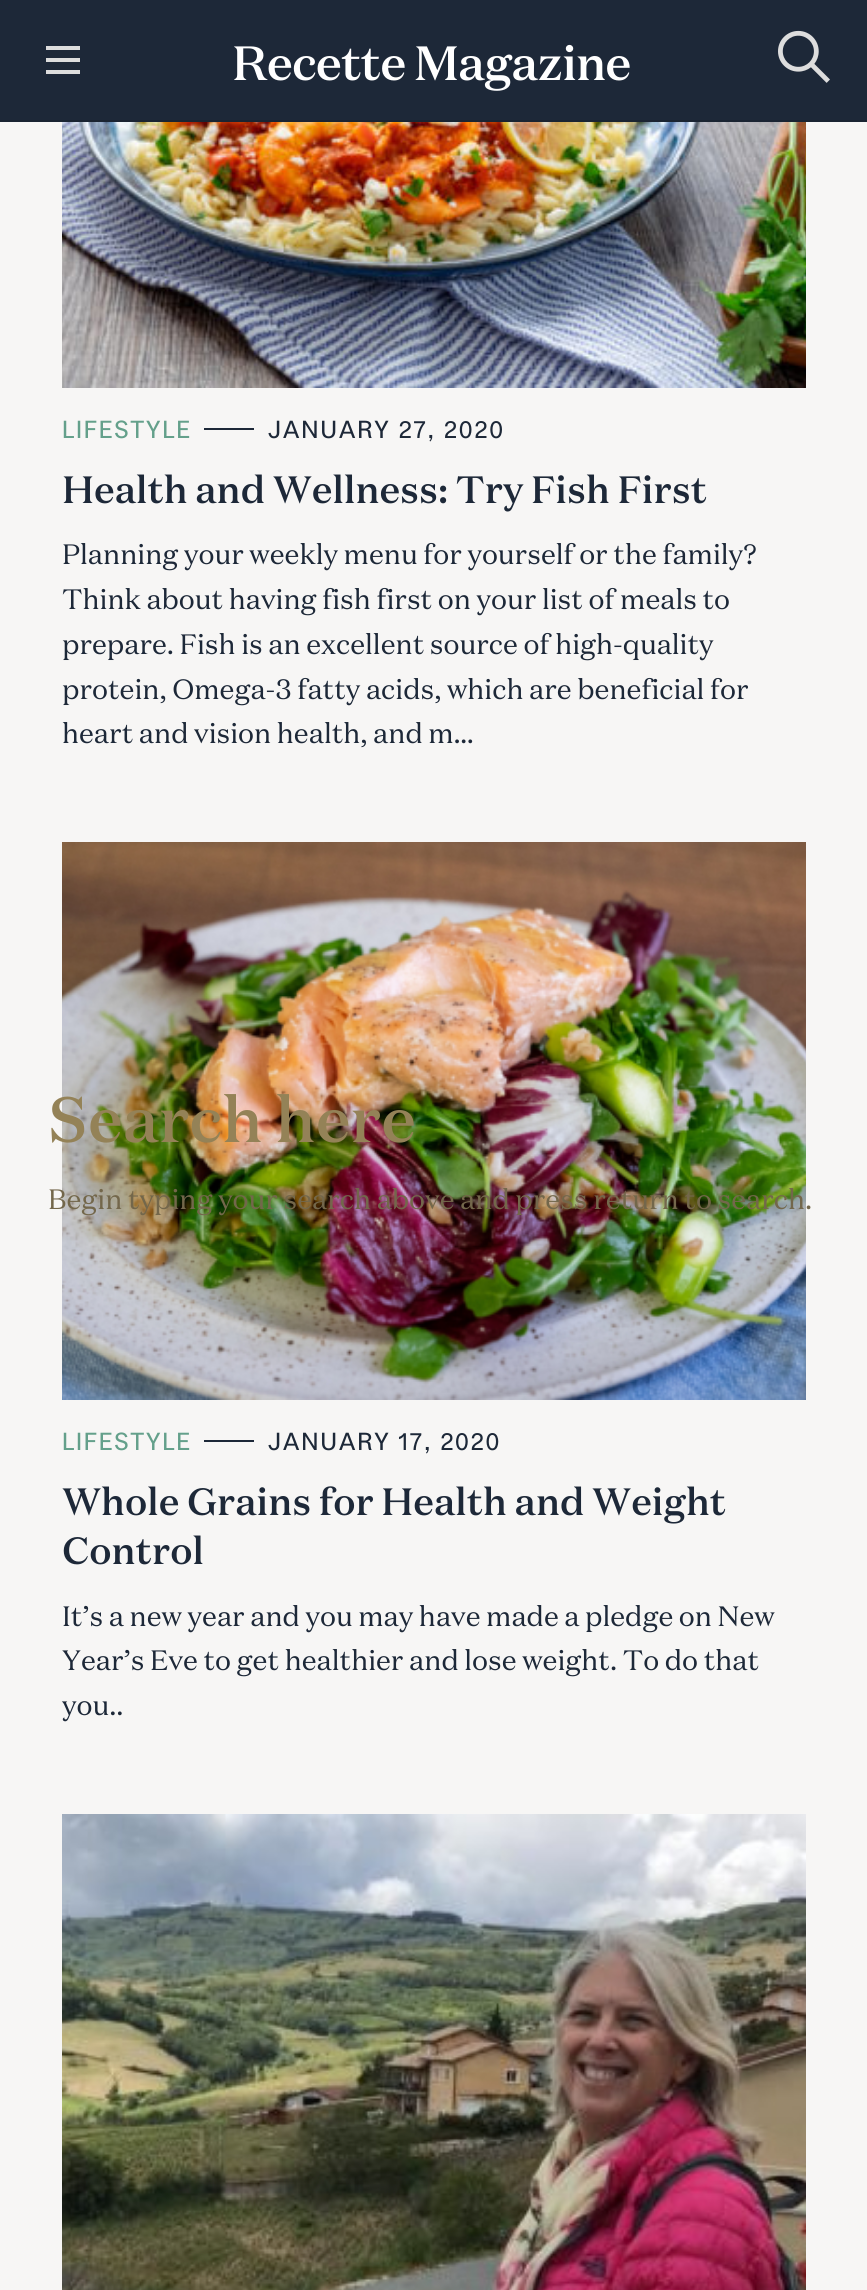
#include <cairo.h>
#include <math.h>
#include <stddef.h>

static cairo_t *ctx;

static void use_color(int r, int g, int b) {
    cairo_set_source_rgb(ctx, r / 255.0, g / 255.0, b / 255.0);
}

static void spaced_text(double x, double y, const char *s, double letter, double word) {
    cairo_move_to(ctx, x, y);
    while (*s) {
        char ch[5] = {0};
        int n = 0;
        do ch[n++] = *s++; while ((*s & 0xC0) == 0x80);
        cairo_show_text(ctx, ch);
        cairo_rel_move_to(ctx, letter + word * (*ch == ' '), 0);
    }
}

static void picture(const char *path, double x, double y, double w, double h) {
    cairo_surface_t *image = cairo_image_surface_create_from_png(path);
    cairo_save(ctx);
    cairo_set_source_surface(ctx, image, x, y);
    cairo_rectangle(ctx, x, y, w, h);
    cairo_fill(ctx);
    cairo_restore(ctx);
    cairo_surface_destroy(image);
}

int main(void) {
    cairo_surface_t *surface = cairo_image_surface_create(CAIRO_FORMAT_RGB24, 867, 2290);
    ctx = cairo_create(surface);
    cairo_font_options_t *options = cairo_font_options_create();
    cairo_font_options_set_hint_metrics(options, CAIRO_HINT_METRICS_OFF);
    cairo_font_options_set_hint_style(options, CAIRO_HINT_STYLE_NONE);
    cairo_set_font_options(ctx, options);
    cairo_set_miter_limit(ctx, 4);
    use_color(247, 246, 245);
    cairo_paint(ctx);
    use_color(29, 40, 56);
    cairo_rectangle(ctx, 0, 0, 867, 120);
    cairo_fill(ctx);
    use_color(26, 36, 50);
    cairo_rectangle(ctx, 0, 120, 867, 2);
    cairo_fill(ctx);
    use_color(221, 221, 221);
    cairo_rectangle(ctx, 46, 46, 34, 4);
    cairo_fill(ctx);
    cairo_rectangle(ctx, 46, 58, 34, 4);
    cairo_fill(ctx);
    cairo_rectangle(ctx, 46, 70, 34, 4);
    cairo_fill(ctx);
    cairo_select_font_face(ctx, "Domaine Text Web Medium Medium", CAIRO_FONT_SLANT_NORMAL, CAIRO_FONT_WEIGHT_NORMAL);
    cairo_set_font_size(ctx, 48);
    use_color(255, 255, 255);
    spaced_text(232, 80, "Recette Magazine", -1, 0);
    picture("img1.png", 778, 30, 52, 53);
    picture("img2.png", 62, 122, 744, 266);
    cairo_select_font_face(ctx, "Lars", CAIRO_FONT_SLANT_NORMAL, CAIRO_FONT_WEIGHT_NORMAL);
    cairo_set_font_size(ctx, 24);
    use_color(100, 160, 139);
    spaced_text(62, 438, "LIFESTYLE", 1.7, 0);
    use_color(29, 40, 56);
    cairo_rectangle(ctx, 204, 428, 50, 2);
    cairo_fill(ctx);
    spaced_text(268, 438, "JANUARY 27, 2020", 1.7, 0);
    cairo_select_font_face(ctx, "Domaine Text Web Medium Medium", CAIRO_FONT_SLANT_NORMAL, CAIRO_FONT_WEIGHT_NORMAL);
    cairo_set_font_size(ctx, 38);
    cairo_move_to(ctx, 62, 503);
    cairo_show_text(ctx, "Health and Wellness: Try Fish First");
    cairo_select_font_face(ctx, "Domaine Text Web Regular", CAIRO_FONT_SLANT_NORMAL, CAIRO_FONT_WEIGHT_NORMAL);
    cairo_set_font_size(ctx, 28);
    cairo_move_to(ctx, 62, 564);
    cairo_show_text(ctx, "Planning your weekly menu for yourself or the family?");
    cairo_move_to(ctx, 62, 609);
    cairo_show_text(ctx, "Think about having fish first on your list of meals to");
    cairo_move_to(ctx, 62, 654);
    cairo_show_text(ctx, "prepare. Fish is an excellent source of high-quality");
    cairo_move_to(ctx, 62, 699);
    cairo_show_text(ctx, "protein, Omega-3 fatty acids, which are beneficial for");
    cairo_move_to(ctx, 62, 743);
    cairo_show_text(ctx, "heart and vision health, and m…");
    picture("img3.png", 62, 842, 744, 558);
    cairo_select_font_face(ctx, "Lars", CAIRO_FONT_SLANT_NORMAL, CAIRO_FONT_WEIGHT_NORMAL);
    cairo_set_font_size(ctx, 24);
    use_color(100, 160, 139);
    spaced_text(62, 1450, "LIFESTYLE", 1.7, 0);
    use_color(29, 40, 56);
    cairo_rectangle(ctx, 204, 1440, 50, 2);
    cairo_fill(ctx);
    spaced_text(268, 1450, "JANUARY 17, 2020", 1.7, 0);
    cairo_select_font_face(ctx, "Domaine Text Web Medium Medium", CAIRO_FONT_SLANT_NORMAL, CAIRO_FONT_WEIGHT_NORMAL);
    cairo_set_font_size(ctx, 38);
    cairo_move_to(ctx, 62, 1515);
    cairo_show_text(ctx, "Whole Grains for Health and Weight");
    cairo_move_to(ctx, 62, 1564);
    cairo_show_text(ctx, "Control");
    cairo_select_font_face(ctx, "Domaine Text Web Regular", CAIRO_FONT_SLANT_NORMAL, CAIRO_FONT_WEIGHT_NORMAL);
    cairo_set_font_size(ctx, 28);
    cairo_move_to(ctx, 62, 1626);
    cairo_show_text(ctx, "It’s a new year and you may have made a pledge on New");
    cairo_move_to(ctx, 62, 1670);
    cairo_show_text(ctx, "Year’s Eve to get healthier and lose weight. To do that");
    cairo_move_to(ctx, 62, 1715);
    cairo_show_text(ctx, "you..");
    picture("img4.png", 62, 1814, 744, 476);
    cairo_select_font_face(ctx, "Domaine Text Web Medium Medium", CAIRO_FONT_SLANT_NORMAL, CAIRO_FONT_WEIGHT_NORMAL);
    cairo_set_font_size(ctx, 64);
    use_color(148, 130, 87);
    cairo_move_to(ctx, 48, 1142);
    cairo_show_text(ctx, "Search here");
    cairo_select_font_face(ctx, "Domaine Text Web Regular", CAIRO_FONT_SLANT_NORMAL, CAIRO_FONT_WEIGHT_NORMAL);
    cairo_set_font_size(ctx, 28);
    use_color(115, 103, 75);
    cairo_move_to(ctx, 48, 1209);
    cairo_show_text(ctx, "Begin typing your search above and press return to search.");
    cairo_surface_write_to_png(surface, "result.png");
    cairo_font_options_destroy(options);
    cairo_destroy(ctx);
    cairo_surface_destroy(surface);
    return 0;
}
